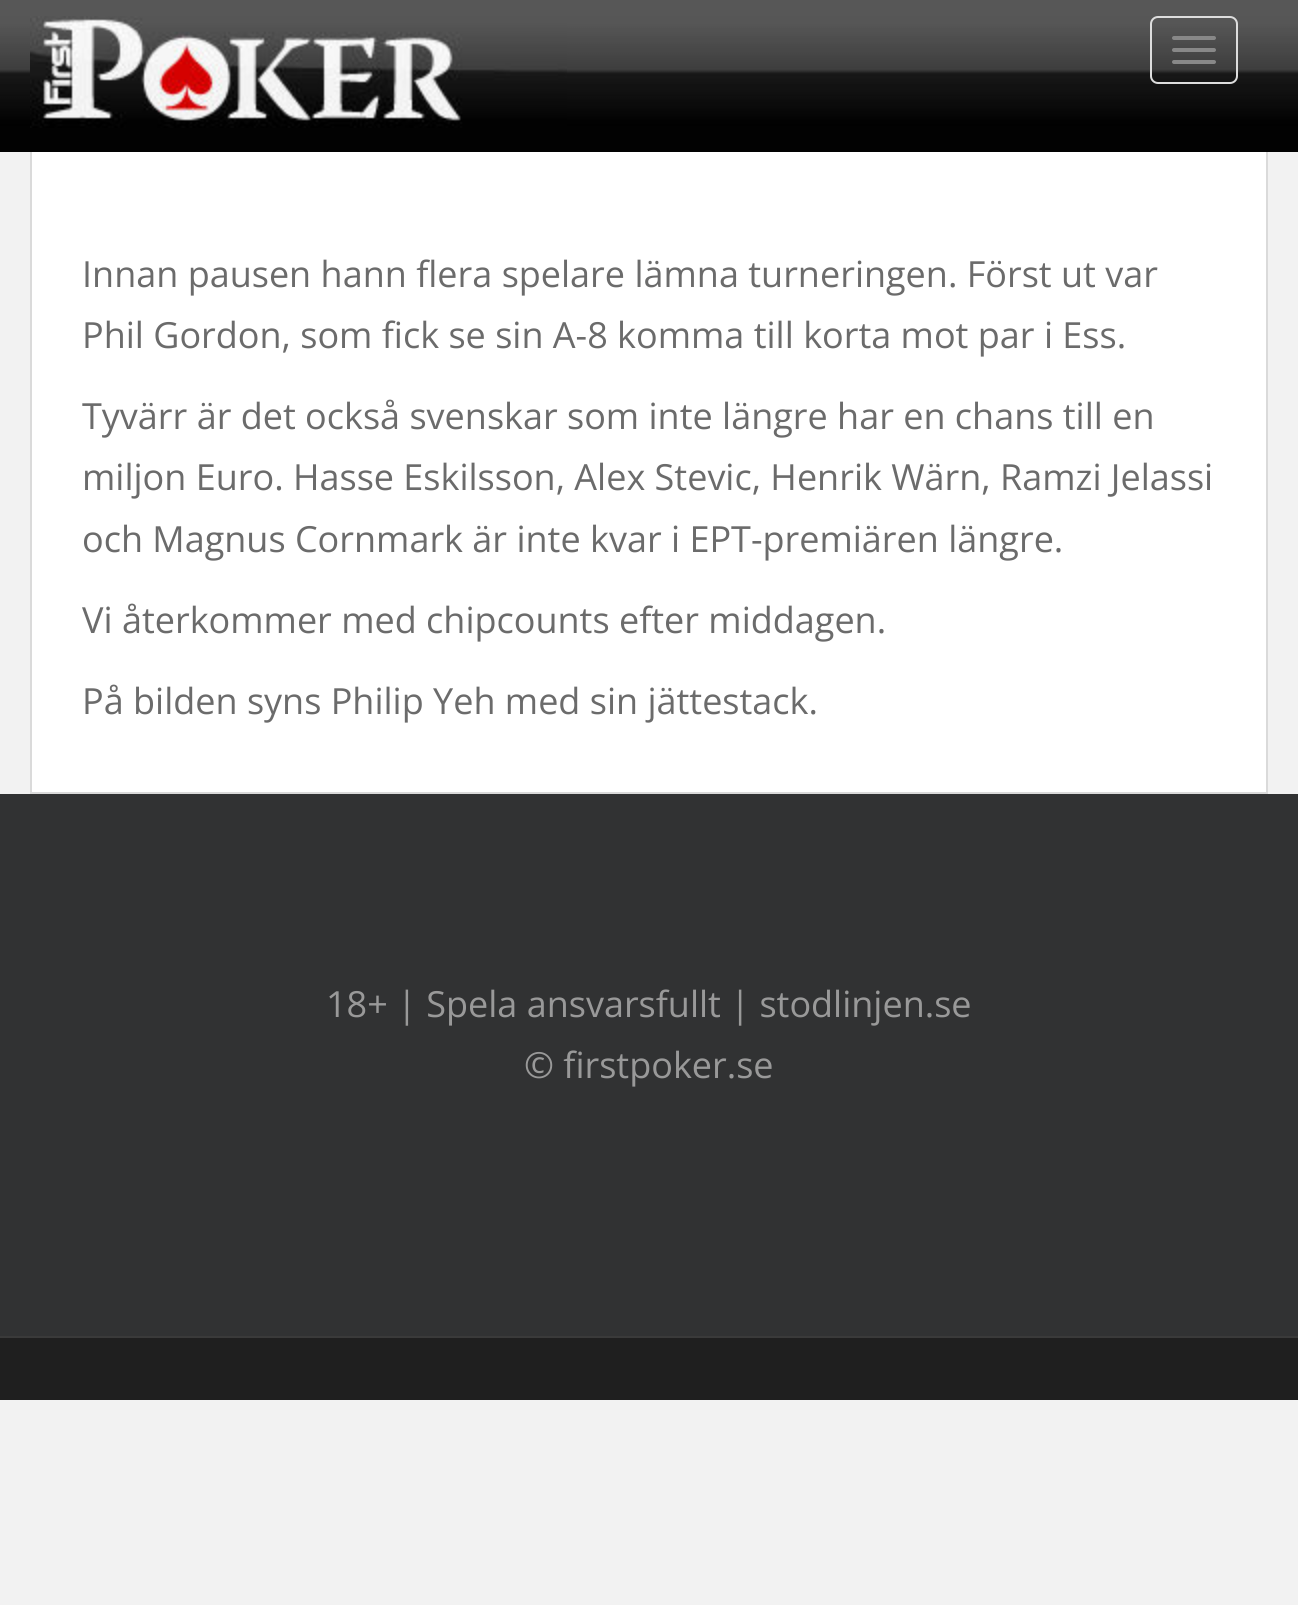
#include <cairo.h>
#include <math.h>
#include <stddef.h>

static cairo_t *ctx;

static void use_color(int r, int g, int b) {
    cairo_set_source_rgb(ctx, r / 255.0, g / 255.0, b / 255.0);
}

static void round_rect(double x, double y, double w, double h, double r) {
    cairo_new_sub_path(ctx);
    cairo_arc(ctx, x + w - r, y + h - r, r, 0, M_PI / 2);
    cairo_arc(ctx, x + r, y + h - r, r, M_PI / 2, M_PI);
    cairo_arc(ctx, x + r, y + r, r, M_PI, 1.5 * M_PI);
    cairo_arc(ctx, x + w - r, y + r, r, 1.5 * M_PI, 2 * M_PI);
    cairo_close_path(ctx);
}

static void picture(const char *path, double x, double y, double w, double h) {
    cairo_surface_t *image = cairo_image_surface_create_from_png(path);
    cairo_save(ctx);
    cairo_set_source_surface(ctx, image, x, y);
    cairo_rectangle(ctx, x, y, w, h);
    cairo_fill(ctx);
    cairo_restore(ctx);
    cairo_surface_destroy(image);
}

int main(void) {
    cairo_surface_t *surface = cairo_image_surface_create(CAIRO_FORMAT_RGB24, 1298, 1605);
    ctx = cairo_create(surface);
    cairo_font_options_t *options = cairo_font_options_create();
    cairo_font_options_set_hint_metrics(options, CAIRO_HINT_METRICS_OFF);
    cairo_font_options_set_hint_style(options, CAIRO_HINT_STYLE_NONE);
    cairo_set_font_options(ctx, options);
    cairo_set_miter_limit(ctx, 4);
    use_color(242, 242, 242);
    cairo_paint(ctx);
    use_color(255, 255, 255);
    cairo_rectangle(ctx, 32, 152, 1234, 640);
    cairo_fill(ctx);
    cairo_rectangle(ctx, 31, 1, 1236, 792);
    use_color(218, 218, 218);
    cairo_stroke(ctx);
    picture("img1.png", 0, 0, 1298, 152);
    picture("img2.png", 30, 16, 537, 112);
    round_rect(1151, 17, 86, 66, 7);
    use_color(221, 221, 221);
    cairo_stroke(ctx);
    use_color(136, 136, 136);
    round_rect(1172, 36, 44, 4, 2);
    cairo_fill(ctx);
    round_rect(1172, 48, 44, 4, 2);
    cairo_fill(ctx);
    round_rect(1172, 60, 44, 4, 2);
    cairo_fill(ctx);
    cairo_select_font_face(ctx, "Open Sans", CAIRO_FONT_SLANT_NORMAL, CAIRO_FONT_WEIGHT_NORMAL);
    cairo_set_font_size(ctx, 36);
    use_color(107, 107, 107);
    cairo_move_to(ctx, 82, 287);
    cairo_show_text(ctx, "Innan pausen hann flera spelare lämna turneringen. Först ut var");
    cairo_move_to(ctx, 82, 348);
    cairo_show_text(ctx, "Phil Gordon, som fick se sin A-8 komma till korta mot par i Ess.");
    cairo_move_to(ctx, 82, 429);
    cairo_show_text(ctx, "Tyvärr är det också svenskar som inte längre har en chans till en");
    cairo_move_to(ctx, 82, 490);
    cairo_show_text(ctx, "miljon Euro. Hasse Eskilsson, Alex Stevic, Henrik Wärn, Ramzi Jelassi");
    cairo_move_to(ctx, 82, 552);
    cairo_show_text(ctx, "och Magnus Cornmark är inte kvar i EPT-premiären längre.");
    cairo_move_to(ctx, 82, 633);
    cairo_show_text(ctx, "Vi återkommer med chipcounts efter middagen.");
    cairo_move_to(ctx, 82, 714);
    cairo_show_text(ctx, "På bilden syns Philip Yeh med sin jättestack.");
    use_color(49, 50, 51);
    cairo_rectangle(ctx, 0, 794, 1298, 542);
    cairo_fill(ctx);
    use_color(153, 153, 153);
    cairo_move_to(ctx, 326, 1017);
    cairo_show_text(ctx, "18+ | Spela ansvarsfullt | stodlinjen.se");
    cairo_move_to(ctx, 524, 1078);
    cairo_show_text(ctx, "© firstpoker.se");
    use_color(31, 31, 31);
    cairo_rectangle(ctx, 0, 1338, 1298, 62);
    cairo_fill(ctx);
    use_color(58, 58, 58);
    cairo_rectangle(ctx, 0, 1336, 1298, 2);
    cairo_fill(ctx);
    cairo_surface_write_to_png(surface, "result.png");
    cairo_font_options_destroy(options);
    cairo_destroy(ctx);
    cairo_surface_destroy(surface);
    return 0;
}
